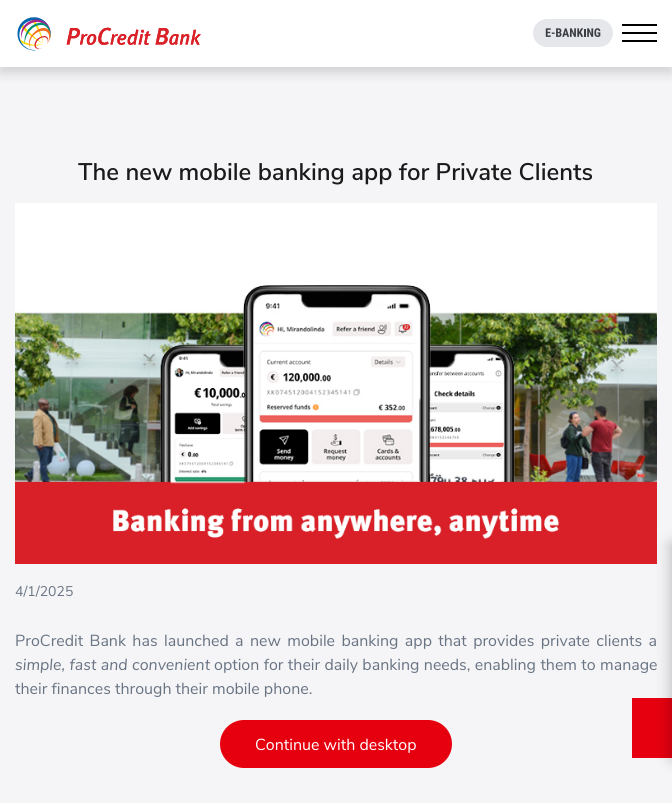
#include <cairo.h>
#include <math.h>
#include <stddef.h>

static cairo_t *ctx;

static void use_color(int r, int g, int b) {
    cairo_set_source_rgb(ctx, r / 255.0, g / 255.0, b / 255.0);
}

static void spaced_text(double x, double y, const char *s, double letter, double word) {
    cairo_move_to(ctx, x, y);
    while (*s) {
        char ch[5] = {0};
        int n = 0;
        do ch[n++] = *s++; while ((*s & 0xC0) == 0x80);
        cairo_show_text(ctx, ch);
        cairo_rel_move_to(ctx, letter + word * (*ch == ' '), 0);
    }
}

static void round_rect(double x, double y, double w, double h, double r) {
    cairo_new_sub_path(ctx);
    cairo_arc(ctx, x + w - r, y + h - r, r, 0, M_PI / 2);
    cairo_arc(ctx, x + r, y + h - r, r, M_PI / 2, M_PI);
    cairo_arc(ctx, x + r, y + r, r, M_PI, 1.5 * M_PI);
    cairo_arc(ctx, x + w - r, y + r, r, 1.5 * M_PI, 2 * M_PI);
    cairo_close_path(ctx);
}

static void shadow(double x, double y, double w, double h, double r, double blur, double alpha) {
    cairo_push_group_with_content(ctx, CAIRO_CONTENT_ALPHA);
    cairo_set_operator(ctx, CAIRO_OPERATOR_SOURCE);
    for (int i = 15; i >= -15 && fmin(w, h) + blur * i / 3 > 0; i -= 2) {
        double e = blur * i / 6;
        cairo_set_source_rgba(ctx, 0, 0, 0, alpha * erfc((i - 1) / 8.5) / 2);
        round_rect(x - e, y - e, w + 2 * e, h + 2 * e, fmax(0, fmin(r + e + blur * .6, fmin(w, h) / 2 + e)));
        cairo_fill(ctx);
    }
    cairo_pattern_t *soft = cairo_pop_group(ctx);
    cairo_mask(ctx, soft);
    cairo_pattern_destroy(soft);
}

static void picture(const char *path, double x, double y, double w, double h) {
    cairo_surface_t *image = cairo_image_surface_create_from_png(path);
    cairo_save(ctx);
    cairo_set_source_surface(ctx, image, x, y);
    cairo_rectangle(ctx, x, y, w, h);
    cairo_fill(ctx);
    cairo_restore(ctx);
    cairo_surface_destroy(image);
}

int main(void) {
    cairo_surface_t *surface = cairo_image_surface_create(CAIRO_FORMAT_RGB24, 672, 803);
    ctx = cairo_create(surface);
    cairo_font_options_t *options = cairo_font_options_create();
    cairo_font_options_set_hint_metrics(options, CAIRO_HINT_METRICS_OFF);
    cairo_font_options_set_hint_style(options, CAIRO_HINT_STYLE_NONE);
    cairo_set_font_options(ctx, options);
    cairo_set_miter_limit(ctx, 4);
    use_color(245, 245, 247);
    cairo_paint(ctx);
    use_color(0, 0, 0);
    shadow(0, 6, 672, 67, 0, 6, 0.15);
    use_color(255, 255, 255);
    cairo_rectangle(ctx, 0, 0, 672, 67);
    cairo_fill(ctx);
    picture("img1.png", 17, 17, 184, 34);
    picture("img2.png", 533, 19, 80, 28);
    use_color(0, 0, 0);
    cairo_rectangle(ctx, 622, 24, 35, 2);
    cairo_fill(ctx);
    cairo_rectangle(ctx, 622, 32, 35, 2);
    cairo_fill(ctx);
    cairo_rectangle(ctx, 622, 40, 35, 2);
    cairo_fill(ctx);
    cairo_select_font_face(ctx, "Nunito Sans SemiBold", CAIRO_FONT_SLANT_NORMAL, CAIRO_FONT_WEIGHT_NORMAL);
    cairo_set_font_size(ctx, 24);
    use_color(26, 26, 26);
    cairo_move_to(ctx, 78, 180);
    cairo_show_text(ctx, "The new mobile banking app for Private Clients");
    picture("img3.png", 15, 203, 642, 361);
    cairo_select_font_face(ctx, "Nunito Sans", CAIRO_FONT_SLANT_NORMAL, CAIRO_FONT_WEIGHT_NORMAL);
    cairo_set_font_size(ctx, 14);
    use_color(105, 116, 131);
    cairo_move_to(ctx, 15, 596);
    cairo_show_text(ctx, "4/1/2025");
    cairo_set_font_size(ctx, 16);
    spaced_text(15, 646, "ProCredit Bank has launched a new mobile banking app that provides private clients a", 0, 2.25);
    cairo_select_font_face(ctx, "Nunito Sans", CAIRO_FONT_SLANT_ITALIC, CAIRO_FONT_WEIGHT_NORMAL);
    spaced_text(15, 670, "simple, fast and convenient", 0, 0.25);
    cairo_select_font_face(ctx, "Nunito Sans", CAIRO_FONT_SLANT_NORMAL, CAIRO_FONT_WEIGHT_NORMAL);
    spaced_text(214, 670, "option for their daily banking needs, enabling them to manage", 0, 0.25);
    cairo_move_to(ctx, 15, 694);
    cairo_show_text(ctx, "their finances through their mobile phone.");
    use_color(230, 0, 15);
    round_rect(220, 720, 232, 48, 24);
    cairo_fill(ctx);
    use_color(255, 255, 255);
    cairo_move_to(ctx, 255, 750);
    cairo_show_text(ctx, "Continue with desktop");
    use_color(230, 0, 15);
    cairo_rectangle(ctx, 632, 698, 40, 60);
    cairo_fill(ctx);
    use_color(0, 0, 0);
    shadow(671, 544, 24, 214, 0, 7.5, 0.25);
    cairo_surface_write_to_png(surface, "result.png");
    cairo_font_options_destroy(options);
    cairo_destroy(ctx);
    cairo_surface_destroy(surface);
    return 0;
}
